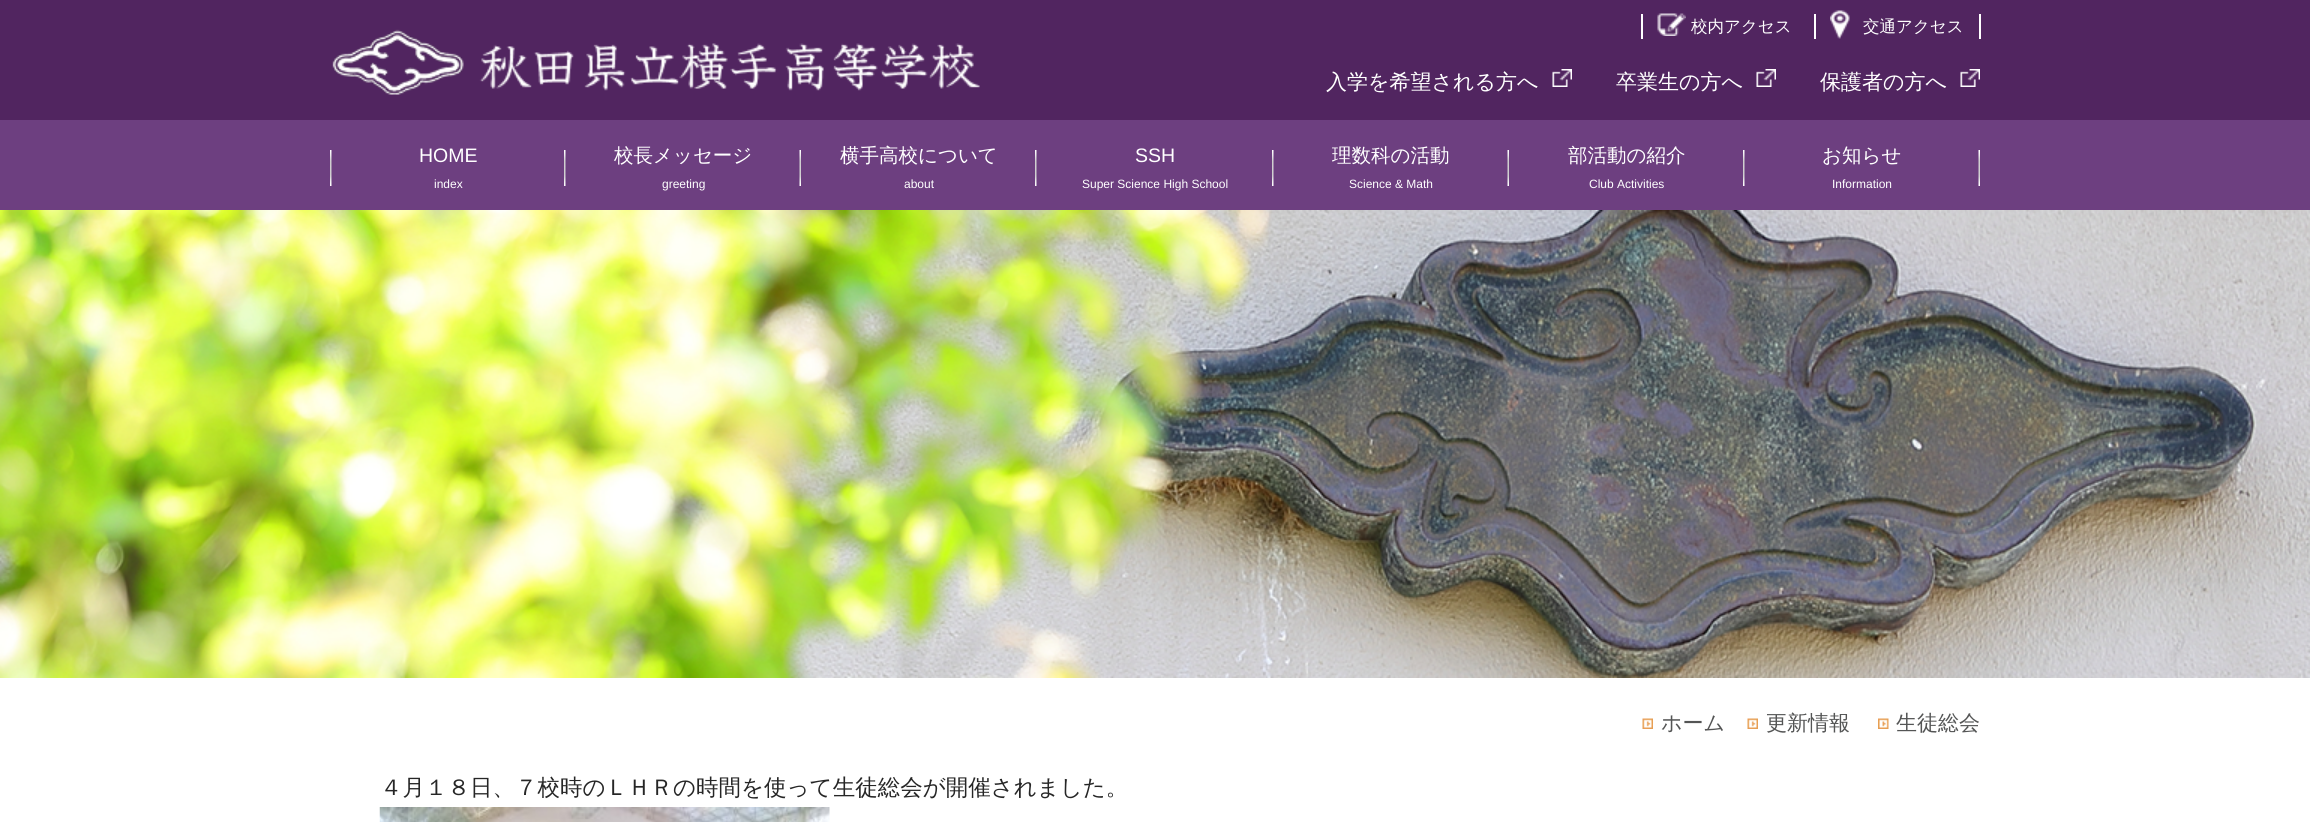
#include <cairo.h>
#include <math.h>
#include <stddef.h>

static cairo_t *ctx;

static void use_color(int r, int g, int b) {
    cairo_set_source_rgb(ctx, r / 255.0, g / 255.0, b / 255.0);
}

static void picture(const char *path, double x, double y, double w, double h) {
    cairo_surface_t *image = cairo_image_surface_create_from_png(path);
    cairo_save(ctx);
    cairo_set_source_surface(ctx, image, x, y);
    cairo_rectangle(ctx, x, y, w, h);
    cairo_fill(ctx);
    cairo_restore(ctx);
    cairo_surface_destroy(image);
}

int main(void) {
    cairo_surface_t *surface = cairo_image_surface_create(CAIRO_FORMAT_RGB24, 2310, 822);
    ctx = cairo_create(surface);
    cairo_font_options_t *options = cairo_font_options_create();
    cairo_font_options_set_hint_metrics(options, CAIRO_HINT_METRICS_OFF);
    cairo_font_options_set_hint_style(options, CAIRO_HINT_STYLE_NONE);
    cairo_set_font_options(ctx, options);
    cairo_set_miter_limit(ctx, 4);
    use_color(255, 255, 255);
    cairo_paint(ctx);
    use_color(81, 37, 96);
    cairo_rectangle(ctx, 0, 0, 2310, 120);
    cairo_fill(ctx);
    use_color(255, 255, 255);
    cairo_rectangle(ctx, 1641, 14, 2, 25);
    cairo_fill(ctx);
    picture("img1.png", 1657, 13, 29, 23);
    cairo_select_font_face(ctx, "WenQuanYi Zen Hei Medium", CAIRO_FONT_SLANT_NORMAL, CAIRO_FONT_WEIGHT_NORMAL);
    cairo_set_font_size(ctx, 16.5);
    cairo_move_to(ctx, 1691, 32);
    cairo_show_text(ctx, "校内アクセス");
    cairo_rectangle(ctx, 1979, 14, 2, 25);
    cairo_fill(ctx);
    cairo_rectangle(ctx, 1814, 14, 2, 25);
    cairo_fill(ctx);
    picture("img2.png", 1830, 10, 20, 29);
    cairo_move_to(ctx, 1863, 32);
    cairo_show_text(ctx, "交通アクセス");
    picture("img3.png", 332, 29, 648, 66);
    cairo_set_font_size(ctx, 21);
    cairo_move_to(ctx, 1326, 89);
    cairo_show_text(ctx, "入学を希望される方へ");
    picture("img4.png", 1552, 69, 20, 18);
    cairo_move_to(ctx, 1616, 89);
    cairo_show_text(ctx, "卒業生の方へ");
    picture("img4.png", 1756, 69, 20, 18);
    cairo_move_to(ctx, 1820, 89);
    cairo_show_text(ctx, "保護者の方へ");
    picture("img5.png", 1960, 69, 20, 18);
    use_color(109, 63, 128);
    cairo_rectangle(ctx, 0, 120, 2310, 90);
    cairo_fill(ctx);
    picture("img6.png", 330, 150, 2, 36);
    picture("img6.png", 564, 150, 2, 36);
    cairo_select_font_face(ctx, "Liberation Sans", CAIRO_FONT_SLANT_NORMAL, CAIRO_FONT_WEIGHT_NORMAL);
    cairo_set_font_size(ctx, 19.5);
    use_color(255, 255, 255);
    cairo_move_to(ctx, 419, 162);
    cairo_show_text(ctx, "HOME");
    cairo_set_font_size(ctx, 12);
    cairo_move_to(ctx, 434, 188);
    cairo_show_text(ctx, "index");
    picture("img7.png", 799, 150, 2, 36);
    cairo_select_font_face(ctx, "WenQuanYi Zen Hei Medium", CAIRO_FONT_SLANT_NORMAL, CAIRO_FONT_WEIGHT_NORMAL);
    cairo_set_font_size(ctx, 19.5);
    cairo_move_to(ctx, 614, 162);
    cairo_show_text(ctx, "校長メッセージ");
    cairo_select_font_face(ctx, "Liberation Sans", CAIRO_FONT_SLANT_NORMAL, CAIRO_FONT_WEIGHT_NORMAL);
    cairo_set_font_size(ctx, 12);
    cairo_move_to(ctx, 662, 188);
    cairo_show_text(ctx, "greeting");
    picture("img6.png", 1035, 150, 2, 36);
    cairo_select_font_face(ctx, "WenQuanYi Zen Hei Medium", CAIRO_FONT_SLANT_NORMAL, CAIRO_FONT_WEIGHT_NORMAL);
    cairo_set_font_size(ctx, 19.5);
    cairo_move_to(ctx, 840, 162);
    cairo_show_text(ctx, "横手高校について");
    cairo_select_font_face(ctx, "Liberation Sans", CAIRO_FONT_SLANT_NORMAL, CAIRO_FONT_WEIGHT_NORMAL);
    cairo_set_font_size(ctx, 12);
    cairo_move_to(ctx, 904, 188);
    cairo_show_text(ctx, "about");
    picture("img6.png", 1272, 150, 2, 36);
    cairo_set_font_size(ctx, 19.5);
    cairo_move_to(ctx, 1135, 162);
    cairo_show_text(ctx, "SSH");
    cairo_set_font_size(ctx, 12);
    cairo_move_to(ctx, 1082, 188);
    cairo_show_text(ctx, "Super Science High School");
    picture("img7.png", 1507, 150, 2, 36);
    cairo_select_font_face(ctx, "WenQuanYi Zen Hei Medium", CAIRO_FONT_SLANT_NORMAL, CAIRO_FONT_WEIGHT_NORMAL);
    cairo_set_font_size(ctx, 19.5);
    cairo_move_to(ctx, 1332, 162);
    cairo_show_text(ctx, "理数科の活動");
    cairo_select_font_face(ctx, "Liberation Sans", CAIRO_FONT_SLANT_NORMAL, CAIRO_FONT_WEIGHT_NORMAL);
    cairo_set_font_size(ctx, 12);
    cairo_move_to(ctx, 1349, 188);
    cairo_show_text(ctx, "Science & Math");
    picture("img6.png", 1743, 150, 2, 36);
    cairo_select_font_face(ctx, "WenQuanYi Zen Hei Medium", CAIRO_FONT_SLANT_NORMAL, CAIRO_FONT_WEIGHT_NORMAL);
    cairo_set_font_size(ctx, 19.5);
    cairo_move_to(ctx, 1568, 162);
    cairo_show_text(ctx, "部活動の紹介");
    cairo_select_font_face(ctx, "Liberation Sans", CAIRO_FONT_SLANT_NORMAL, CAIRO_FONT_WEIGHT_NORMAL);
    cairo_set_font_size(ctx, 12);
    cairo_move_to(ctx, 1589, 188);
    cairo_show_text(ctx, "Club Activities");
    picture("img7.png", 1978, 150, 2, 36);
    cairo_select_font_face(ctx, "WenQuanYi Zen Hei Medium", CAIRO_FONT_SLANT_NORMAL, CAIRO_FONT_WEIGHT_NORMAL);
    cairo_set_font_size(ctx, 19.5);
    cairo_move_to(ctx, 1822, 162);
    cairo_show_text(ctx, "お知らせ");
    cairo_select_font_face(ctx, "Liberation Sans", CAIRO_FONT_SLANT_NORMAL, CAIRO_FONT_WEIGHT_NORMAL);
    cairo_set_font_size(ctx, 12);
    cairo_move_to(ctx, 1832, 188);
    cairo_show_text(ctx, "Information");
    picture("img8.png", 0, 210, 2310, 468);
    picture("img9.png", 1642, 718, 11, 11);
    cairo_select_font_face(ctx, "WenQuanYi Zen Hei Medium", CAIRO_FONT_SLANT_NORMAL, CAIRO_FONT_WEIGHT_NORMAL);
    cairo_set_font_size(ctx, 21);
    use_color(84, 85, 85);
    cairo_move_to(ctx, 1661, 730);
    cairo_show_text(ctx, "ホーム");
    picture("img9.png", 1747, 718, 11, 11);
    cairo_move_to(ctx, 1766, 730);
    cairo_show_text(ctx, "更新情報");
    picture("img10.png", 1878, 718, 11, 11);
    cairo_move_to(ctx, 1896, 730);
    cairo_show_text(ctx, "生徒総会");
    cairo_set_font_size(ctx, 22.5);
    use_color(38, 38, 38);
    cairo_move_to(ctx, 380, 795);
    cairo_show_text(ctx, "４月１８日、７校時のＬＨＲの時間を使って生徒総会が開催されました。");
    picture("img11.png", 379, 807, 451, 15);
    cairo_surface_write_to_png(surface, "result.png");
    cairo_font_options_destroy(options);
    cairo_destroy(ctx);
    cairo_surface_destroy(surface);
    return 0;
}
